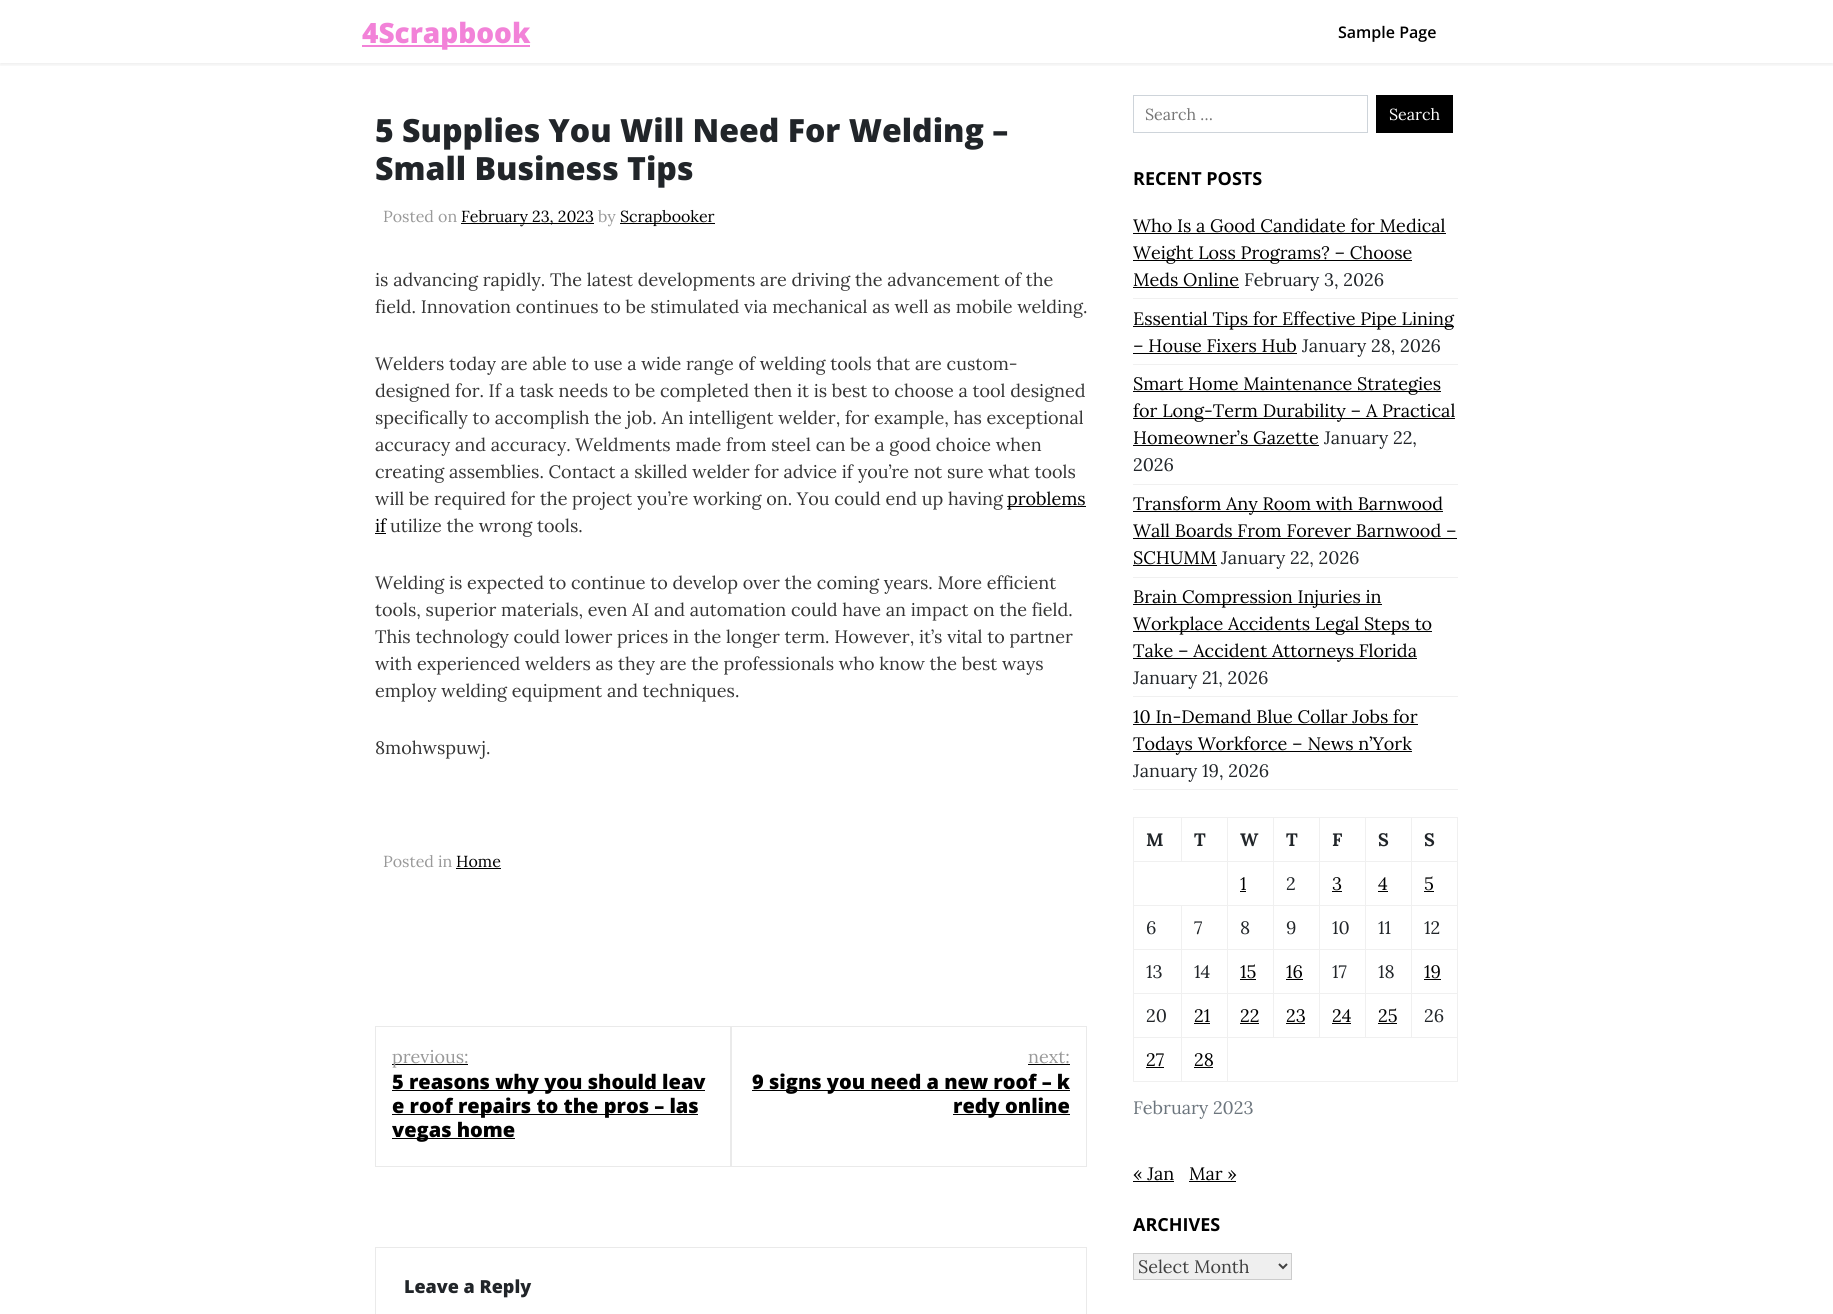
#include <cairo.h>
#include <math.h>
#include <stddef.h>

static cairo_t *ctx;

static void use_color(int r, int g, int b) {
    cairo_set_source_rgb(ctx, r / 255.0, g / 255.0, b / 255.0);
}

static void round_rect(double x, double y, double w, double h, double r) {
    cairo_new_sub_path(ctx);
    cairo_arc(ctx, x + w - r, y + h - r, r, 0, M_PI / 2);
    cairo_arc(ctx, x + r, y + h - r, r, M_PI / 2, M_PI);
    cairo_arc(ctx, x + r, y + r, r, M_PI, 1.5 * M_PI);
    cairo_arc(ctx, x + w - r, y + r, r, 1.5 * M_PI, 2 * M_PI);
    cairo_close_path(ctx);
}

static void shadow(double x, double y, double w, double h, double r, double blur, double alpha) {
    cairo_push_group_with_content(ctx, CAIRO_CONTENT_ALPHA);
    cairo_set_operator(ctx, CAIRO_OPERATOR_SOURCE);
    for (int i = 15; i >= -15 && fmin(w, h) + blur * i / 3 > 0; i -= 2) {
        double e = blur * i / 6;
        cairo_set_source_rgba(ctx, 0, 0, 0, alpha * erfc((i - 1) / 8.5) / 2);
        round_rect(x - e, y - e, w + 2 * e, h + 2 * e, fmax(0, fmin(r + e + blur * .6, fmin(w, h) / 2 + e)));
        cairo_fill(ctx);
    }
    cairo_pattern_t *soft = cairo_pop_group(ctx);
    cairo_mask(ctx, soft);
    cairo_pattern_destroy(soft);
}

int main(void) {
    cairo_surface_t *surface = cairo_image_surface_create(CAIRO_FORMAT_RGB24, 1833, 1314);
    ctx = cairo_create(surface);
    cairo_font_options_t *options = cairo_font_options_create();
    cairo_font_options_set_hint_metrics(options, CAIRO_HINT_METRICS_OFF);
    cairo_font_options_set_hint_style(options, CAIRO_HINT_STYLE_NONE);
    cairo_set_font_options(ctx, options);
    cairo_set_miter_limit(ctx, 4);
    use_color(255, 255, 255);
    cairo_paint(ctx);
    cairo_save(ctx);
    cairo_rectangle(ctx, 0, 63, 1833, 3);
    cairo_clip(ctx);
    use_color(0, 0, 0);
    shadow(0, 2, 1833, 63, 0, 2, 0.07);
    cairo_restore(ctx);
    use_color(242, 130, 216);
    cairo_rectangle(ctx, 362, 45, 168, 2);
    cairo_fill(ctx);
    cairo_select_font_face(ctx, "Open Sans ExtraBold", CAIRO_FONT_SLANT_NORMAL, CAIRO_FONT_WEIGHT_NORMAL);
    cairo_set_font_size(ctx, 28);
    cairo_move_to(ctx, 362, 43);
    cairo_show_text(ctx, "4Scrapbook");
    cairo_select_font_face(ctx, "Open Sans SemiBold", CAIRO_FONT_SLANT_NORMAL, CAIRO_FONT_WEIGHT_NORMAL);
    cairo_set_font_size(ctx, 16);
    use_color(0, 0, 0);
    cairo_move_to(ctx, 1338, 38);
    cairo_show_text(ctx, "Sample Page");
    cairo_select_font_face(ctx, "Open Sans ExtraBold", CAIRO_FONT_SLANT_NORMAL, CAIRO_FONT_WEIGHT_NORMAL);
    cairo_set_font_size(ctx, 32);
    use_color(33, 37, 41);
    cairo_move_to(ctx, 375, 142);
    cairo_show_text(ctx, "5 Supplies You Will Need For Welding –");
    cairo_move_to(ctx, 375, 180);
    cairo_show_text(ctx, "Small Business Tips");
    cairo_select_font_face(ctx, "Lora", CAIRO_FONT_SLANT_NORMAL, CAIRO_FONT_WEIGHT_NORMAL);
    cairo_set_font_size(ctx, 16);
    use_color(153, 153, 153);
    cairo_move_to(ctx, 383, 222);
    cairo_show_text(ctx, "Posted on");
    use_color(0, 0, 0);
    cairo_rectangle(ctx, 461, 223, 133, 1);
    cairo_fill(ctx);
    cairo_move_to(ctx, 461, 222);
    cairo_show_text(ctx, "February 23, 2023");
    use_color(153, 153, 153);
    cairo_move_to(ctx, 598, 222);
    cairo_show_text(ctx, "by");
    use_color(0, 0, 0);
    cairo_rectangle(ctx, 620, 223, 95, 1);
    cairo_fill(ctx);
    cairo_move_to(ctx, 620, 222);
    cairo_show_text(ctx, "Scrapbooker");
    cairo_set_font_size(ctx, 18);
    use_color(53, 53, 53);
    cairo_move_to(ctx, 375, 286);
    cairo_show_text(ctx, "is advancing rapidly. The latest developments are driving the advancement of the");
    cairo_move_to(ctx, 375, 313);
    cairo_show_text(ctx, "field. Innovation continues to be stimulated via mechanical as well as mobile welding.");
    cairo_move_to(ctx, 375, 370);
    cairo_show_text(ctx, "Welders today are able to use a wide range of welding tools that are custom-");
    cairo_move_to(ctx, 375, 397);
    cairo_show_text(ctx, "designed for. If a task needs to be completed then it is best to choose a tool designed");
    cairo_move_to(ctx, 375, 424);
    cairo_show_text(ctx, "specifically to accomplish the job. An intelligent welder, for example, has exceptional");
    cairo_move_to(ctx, 375, 451);
    cairo_show_text(ctx, "accuracy and accuracy. Weldments made from steel can be a good choice when");
    cairo_move_to(ctx, 375, 478);
    cairo_show_text(ctx, "creating assemblies. Contact a skilled welder for advice if you’re not sure what tools");
    cairo_move_to(ctx, 375, 505);
    cairo_show_text(ctx, "will be required for the project you’re working on. You could end up having");
    use_color(0, 0, 0);
    cairo_rectangle(ctx, 1007, 506, 79, 1);
    cairo_fill(ctx);
    cairo_move_to(ctx, 1007, 505);
    cairo_show_text(ctx, "problems");
    cairo_move_to(ctx, 375, 532);
    cairo_show_text(ctx, "if");
    cairo_rectangle(ctx, 375, 533, 11, 1);
    cairo_fill(ctx);
    use_color(53, 53, 53);
    cairo_move_to(ctx, 390, 532);
    cairo_show_text(ctx, "utilize the wrong tools.");
    cairo_move_to(ctx, 375, 589);
    cairo_show_text(ctx, "Welding is expected to continue to develop over the coming years. More efficient");
    cairo_move_to(ctx, 375, 616);
    cairo_show_text(ctx, "tools, superior materials, even AI and automation could have an impact on the field.");
    cairo_move_to(ctx, 375, 643);
    cairo_show_text(ctx, "This technology could lower prices in the longer term. However, it’s vital to partner");
    cairo_move_to(ctx, 375, 670);
    cairo_show_text(ctx, "with experienced welders as they are the professionals who know the best ways");
    cairo_move_to(ctx, 375, 697);
    cairo_show_text(ctx, "employ welding equipment and techniques.");
    cairo_move_to(ctx, 375, 754);
    cairo_show_text(ctx, "8mohwspuwj.");
    cairo_set_font_size(ctx, 16);
    use_color(153, 153, 153);
    cairo_move_to(ctx, 383, 867);
    cairo_show_text(ctx, "Posted in");
    use_color(0, 0, 0);
    cairo_move_to(ctx, 456, 867);
    cairo_show_text(ctx, "Home");
    cairo_rectangle(ctx, 456, 868, 45, 1);
    cairo_fill(ctx);
    cairo_rectangle(ctx, 375.5, 1026.5, 355, 140);
    use_color(234, 234, 234);
    cairo_set_line_width(ctx, 1);
    cairo_stroke(ctx);
    use_color(0, 0, 0);
    cairo_rectangle(ctx, 392, 1064, 76, 1);
    cairo_fill(ctx);
    cairo_set_font_size(ctx, 18);
    use_color(153, 153, 153);
    cairo_move_to(ctx, 392, 1063);
    cairo_show_text(ctx, "previous:");
    use_color(0, 0, 0);
    cairo_rectangle(ctx, 392, 1090, 313, 1);
    cairo_fill(ctx);
    cairo_select_font_face(ctx, "Open Sans ExtraBold", CAIRO_FONT_SLANT_NORMAL, CAIRO_FONT_WEIGHT_NORMAL);
    cairo_set_font_size(ctx, 20);
    cairo_move_to(ctx, 392, 1089);
    cairo_show_text(ctx, "5 reasons why you should leav");
    cairo_rectangle(ctx, 392, 1114, 306, 1);
    cairo_fill(ctx);
    cairo_move_to(ctx, 392, 1113);
    cairo_show_text(ctx, "e roof repairs to the pros – las");
    cairo_rectangle(ctx, 392, 1138, 123, 1);
    cairo_fill(ctx);
    cairo_move_to(ctx, 392, 1137);
    cairo_show_text(ctx, "vegas home");
    cairo_rectangle(ctx, 731.5, 1026.5, 355, 140);
    use_color(234, 234, 234);
    cairo_stroke(ctx);
    cairo_select_font_face(ctx, "Lora", CAIRO_FONT_SLANT_NORMAL, CAIRO_FONT_WEIGHT_NORMAL);
    cairo_set_font_size(ctx, 18);
    use_color(153, 153, 153);
    cairo_move_to(ctx, 1028, 1063);
    cairo_show_text(ctx, "next:");
    use_color(0, 0, 0);
    cairo_rectangle(ctx, 1028, 1064, 42, 1);
    cairo_fill(ctx);
    cairo_rectangle(ctx, 752, 1090, 318, 1);
    cairo_fill(ctx);
    cairo_select_font_face(ctx, "Open Sans ExtraBold", CAIRO_FONT_SLANT_NORMAL, CAIRO_FONT_WEIGHT_NORMAL);
    cairo_set_font_size(ctx, 20);
    cairo_move_to(ctx, 752, 1089);
    cairo_show_text(ctx, "9 signs you need a new roof – k");
    cairo_rectangle(ctx, 953, 1114, 117, 1);
    cairo_fill(ctx);
    cairo_move_to(ctx, 953, 1113);
    cairo_show_text(ctx, "redy online");
    cairo_rectangle(ctx, 375.5, 1247.5, 711, 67);
    use_color(234, 234, 234);
    cairo_stroke(ctx);
    cairo_set_font_size(ctx, 18);
    use_color(33, 37, 41);
    cairo_move_to(ctx, 404, 1293);
    cairo_show_text(ctx, "Leave a Reply");
    cairo_rectangle(ctx, 1133.5, 95.5, 234, 37);
    use_color(206, 212, 218);
    cairo_stroke(ctx);
    cairo_select_font_face(ctx, "Lora", CAIRO_FONT_SLANT_NORMAL, CAIRO_FONT_WEIGHT_NORMAL);
    cairo_set_font_size(ctx, 16);
    use_color(117, 117, 117);
    cairo_move_to(ctx, 1145, 120);
    cairo_show_text(ctx, "Search …");
    use_color(0, 0, 0);
    cairo_rectangle(ctx, 1376, 95, 77, 38);
    cairo_fill(ctx);
    use_color(255, 255, 255);
    cairo_move_to(ctx, 1389, 120);
    cairo_show_text(ctx, "Search");
    cairo_select_font_face(ctx, "Open Sans", CAIRO_FONT_SLANT_NORMAL, CAIRO_FONT_WEIGHT_BOLD);
    cairo_set_font_size(ctx, 18);
    use_color(0, 0, 0);
    cairo_move_to(ctx, 1133, 185);
    cairo_show_text(ctx, "RECENT POSTS");
    use_color(240, 240, 240);
    cairo_rectangle(ctx, 1133, 298, 325, 1);
    cairo_fill(ctx);
    cairo_select_font_face(ctx, "Lora", CAIRO_FONT_SLANT_NORMAL, CAIRO_FONT_WEIGHT_NORMAL);
    use_color(0, 0, 0);
    cairo_move_to(ctx, 1133, 232);
    cairo_show_text(ctx, "Who Is a Good Candidate for Medical");
    cairo_rectangle(ctx, 1133, 233, 313, 1);
    cairo_fill(ctx);
    cairo_rectangle(ctx, 1133, 260, 279, 1);
    cairo_fill(ctx);
    cairo_move_to(ctx, 1133, 259);
    cairo_show_text(ctx, "Weight Loss Programs? – Choose");
    cairo_move_to(ctx, 1133, 286);
    cairo_show_text(ctx, "Meds Online");
    cairo_rectangle(ctx, 1133, 287, 106, 1);
    cairo_fill(ctx);
    use_color(33, 37, 41);
    cairo_move_to(ctx, 1244, 286);
    cairo_show_text(ctx, "February 3, 2026");
    use_color(240, 240, 240);
    cairo_rectangle(ctx, 1133, 364, 325, 1);
    cairo_fill(ctx);
    use_color(0, 0, 0);
    cairo_rectangle(ctx, 1133, 326, 321, 1);
    cairo_fill(ctx);
    cairo_move_to(ctx, 1133, 325);
    cairo_show_text(ctx, "Essential Tips for Effective Pipe Lining");
    cairo_move_to(ctx, 1133, 352);
    cairo_show_text(ctx, "– House Fixers Hub");
    cairo_rectangle(ctx, 1133, 353, 164, 1);
    cairo_fill(ctx);
    use_color(33, 37, 41);
    cairo_move_to(ctx, 1302, 352);
    cairo_show_text(ctx, "January 28, 2026");
    use_color(240, 240, 240);
    cairo_rectangle(ctx, 1133, 484, 325, 1);
    cairo_fill(ctx);
    use_color(0, 0, 0);
    cairo_rectangle(ctx, 1133, 391, 308, 1);
    cairo_fill(ctx);
    cairo_move_to(ctx, 1133, 390);
    cairo_show_text(ctx, "Smart Home Maintenance Strategies");
    cairo_rectangle(ctx, 1133, 418, 322, 1);
    cairo_fill(ctx);
    cairo_move_to(ctx, 1133, 417);
    cairo_show_text(ctx, "for Long-Term Durability – A Practical");
    cairo_move_to(ctx, 1133, 444);
    cairo_show_text(ctx, "Homeowner’s Gazette");
    cairo_rectangle(ctx, 1133, 445, 186, 1);
    cairo_fill(ctx);
    use_color(33, 37, 41);
    cairo_move_to(ctx, 1324, 444);
    cairo_show_text(ctx, "January 22,");
    cairo_move_to(ctx, 1133, 471);
    cairo_show_text(ctx, "2026");
    use_color(240, 240, 240);
    cairo_rectangle(ctx, 1133, 577, 325, 1);
    cairo_fill(ctx);
    use_color(0, 0, 0);
    cairo_rectangle(ctx, 1133, 511, 310, 1);
    cairo_fill(ctx);
    cairo_move_to(ctx, 1133, 510);
    cairo_show_text(ctx, "Transform Any Room with Barnwood");
    cairo_move_to(ctx, 1133, 537);
    cairo_show_text(ctx, "Wall Boards From Forever Barnwood –");
    cairo_rectangle(ctx, 1133, 538, 324, 1);
    cairo_fill(ctx);
    cairo_move_to(ctx, 1133, 564);
    cairo_show_text(ctx, "SCHUMM");
    cairo_rectangle(ctx, 1133, 565, 84, 1);
    cairo_fill(ctx);
    use_color(33, 37, 41);
    cairo_move_to(ctx, 1221, 564);
    cairo_show_text(ctx, "January 22, 2026");
    use_color(240, 240, 240);
    cairo_rectangle(ctx, 1133, 696, 325, 1);
    cairo_fill(ctx);
    use_color(0, 0, 0);
    cairo_rectangle(ctx, 1133, 604, 249, 1);
    cairo_fill(ctx);
    cairo_move_to(ctx, 1133, 603);
    cairo_show_text(ctx, "Brain Compression Injuries in");
    cairo_rectangle(ctx, 1133, 631, 299, 1);
    cairo_fill(ctx);
    cairo_move_to(ctx, 1133, 630);
    cairo_show_text(ctx, "Workplace Accidents Legal Steps to");
    cairo_rectangle(ctx, 1133, 658, 284, 1);
    cairo_fill(ctx);
    cairo_move_to(ctx, 1133, 657);
    cairo_show_text(ctx, "Take – Accident Attorneys Florida");
    use_color(33, 37, 41);
    cairo_move_to(ctx, 1133, 684);
    cairo_show_text(ctx, "January 21, 2026");
    use_color(240, 240, 240);
    cairo_rectangle(ctx, 1133, 789, 325, 1);
    cairo_fill(ctx);
    use_color(0, 0, 0);
    cairo_move_to(ctx, 1133, 723);
    cairo_show_text(ctx, "10 In-Demand Blue Collar Jobs for");
    cairo_rectangle(ctx, 1133, 724, 285, 1);
    cairo_fill(ctx);
    cairo_rectangle(ctx, 1133, 751, 279, 1);
    cairo_fill(ctx);
    cairo_move_to(ctx, 1133, 750);
    cairo_show_text(ctx, "Todays Workforce – News n’York");
    use_color(33, 37, 41);
    cairo_move_to(ctx, 1133, 777);
    cairo_show_text(ctx, "January 19, 2026");
    use_color(240, 240, 240);
    cairo_rectangle(ctx, 1411, 817, 47, 1);
    cairo_fill(ctx);
    cairo_rectangle(ctx, 1411, 861, 47, 1);
    cairo_fill(ctx);
    cairo_rectangle(ctx, 1411, 905, 47, 1);
    cairo_fill(ctx);
    cairo_rectangle(ctx, 1411, 949, 47, 1);
    cairo_fill(ctx);
    cairo_rectangle(ctx, 1411, 993, 47, 1);
    cairo_fill(ctx);
    cairo_rectangle(ctx, 1227, 1037, 231, 1);
    cairo_fill(ctx);
    cairo_rectangle(ctx, 1411, 993, 1, 45);
    cairo_fill(ctx);
    cairo_rectangle(ctx, 1365, 993, 47, 1);
    cairo_fill(ctx);
    cairo_rectangle(ctx, 1411, 949, 1, 45);
    cairo_fill(ctx);
    cairo_rectangle(ctx, 1365, 949, 47, 1);
    cairo_fill(ctx);
    cairo_rectangle(ctx, 1411, 905, 1, 45);
    cairo_fill(ctx);
    cairo_rectangle(ctx, 1365, 905, 47, 1);
    cairo_fill(ctx);
    cairo_rectangle(ctx, 1411, 861, 1, 45);
    cairo_fill(ctx);
    cairo_rectangle(ctx, 1365, 861, 47, 1);
    cairo_fill(ctx);
    cairo_rectangle(ctx, 1411, 817, 1, 45);
    cairo_fill(ctx);
    cairo_rectangle(ctx, 1365, 817, 47, 1);
    cairo_fill(ctx);
    cairo_rectangle(ctx, 1365, 993, 1, 45);
    cairo_fill(ctx);
    cairo_rectangle(ctx, 1319, 993, 47, 1);
    cairo_fill(ctx);
    cairo_rectangle(ctx, 1365, 949, 1, 45);
    cairo_fill(ctx);
    cairo_rectangle(ctx, 1319, 949, 47, 1);
    cairo_fill(ctx);
    cairo_rectangle(ctx, 1365, 905, 1, 45);
    cairo_fill(ctx);
    cairo_rectangle(ctx, 1319, 905, 47, 1);
    cairo_fill(ctx);
    cairo_rectangle(ctx, 1365, 861, 1, 45);
    cairo_fill(ctx);
    cairo_rectangle(ctx, 1319, 861, 47, 1);
    cairo_fill(ctx);
    cairo_rectangle(ctx, 1365, 817, 1, 45);
    cairo_fill(ctx);
    cairo_rectangle(ctx, 1319, 817, 47, 1);
    cairo_fill(ctx);
    cairo_rectangle(ctx, 1319, 993, 1, 45);
    cairo_fill(ctx);
    cairo_rectangle(ctx, 1273, 993, 47, 1);
    cairo_fill(ctx);
    cairo_rectangle(ctx, 1319, 949, 1, 45);
    cairo_fill(ctx);
    cairo_rectangle(ctx, 1273, 949, 47, 1);
    cairo_fill(ctx);
    cairo_rectangle(ctx, 1319, 905, 1, 45);
    cairo_fill(ctx);
    cairo_rectangle(ctx, 1273, 905, 47, 1);
    cairo_fill(ctx);
    cairo_rectangle(ctx, 1319, 861, 1, 45);
    cairo_fill(ctx);
    cairo_rectangle(ctx, 1273, 861, 47, 1);
    cairo_fill(ctx);
    cairo_rectangle(ctx, 1319, 817, 1, 45);
    cairo_fill(ctx);
    cairo_rectangle(ctx, 1273, 817, 47, 1);
    cairo_fill(ctx);
    cairo_rectangle(ctx, 1273, 993, 1, 45);
    cairo_fill(ctx);
    cairo_rectangle(ctx, 1227, 993, 47, 1);
    cairo_fill(ctx);
    cairo_rectangle(ctx, 1273, 949, 1, 45);
    cairo_fill(ctx);
    cairo_rectangle(ctx, 1227, 949, 47, 1);
    cairo_fill(ctx);
    cairo_rectangle(ctx, 1273, 905, 1, 45);
    cairo_fill(ctx);
    cairo_rectangle(ctx, 1227, 905, 47, 1);
    cairo_fill(ctx);
    cairo_rectangle(ctx, 1273, 861, 1, 45);
    cairo_fill(ctx);
    cairo_rectangle(ctx, 1227, 861, 47, 1);
    cairo_fill(ctx);
    cairo_rectangle(ctx, 1273, 817, 1, 45);
    cairo_fill(ctx);
    cairo_rectangle(ctx, 1227, 817, 47, 1);
    cairo_fill(ctx);
    cairo_rectangle(ctx, 1457, 1037, 1, 45);
    cairo_fill(ctx);
    cairo_rectangle(ctx, 1227, 1081, 231, 1);
    cairo_fill(ctx);
    cairo_rectangle(ctx, 1227, 1037, 1, 45);
    cairo_fill(ctx);
    cairo_rectangle(ctx, 1181, 1037, 47, 1);
    cairo_fill(ctx);
    cairo_rectangle(ctx, 1227, 993, 1, 45);
    cairo_fill(ctx);
    cairo_rectangle(ctx, 1181, 993, 47, 1);
    cairo_fill(ctx);
    cairo_rectangle(ctx, 1227, 949, 1, 45);
    cairo_fill(ctx);
    cairo_rectangle(ctx, 1181, 949, 47, 1);
    cairo_fill(ctx);
    cairo_rectangle(ctx, 1227, 905, 1, 45);
    cairo_fill(ctx);
    cairo_rectangle(ctx, 1181, 905, 47, 1);
    cairo_fill(ctx);
    cairo_rectangle(ctx, 1227, 861, 1, 45);
    cairo_fill(ctx);
    cairo_rectangle(ctx, 1133, 861, 95, 1);
    cairo_fill(ctx);
    cairo_rectangle(ctx, 1227, 817, 1, 45);
    cairo_fill(ctx);
    cairo_rectangle(ctx, 1181, 817, 47, 1);
    cairo_fill(ctx);
    cairo_rectangle(ctx, 1181, 817, 1, 45);
    cairo_fill(ctx);
    cairo_rectangle(ctx, 1133, 817, 49, 1);
    cairo_fill(ctx);
    cairo_rectangle(ctx, 1181, 1081, 47, 1);
    cairo_fill(ctx);
    cairo_rectangle(ctx, 1181, 1037, 1, 45);
    cairo_fill(ctx);
    cairo_rectangle(ctx, 1133, 1037, 49, 1);
    cairo_fill(ctx);
    cairo_rectangle(ctx, 1181, 993, 1, 45);
    cairo_fill(ctx);
    cairo_rectangle(ctx, 1133, 993, 49, 1);
    cairo_fill(ctx);
    cairo_rectangle(ctx, 1181, 949, 1, 45);
    cairo_fill(ctx);
    cairo_rectangle(ctx, 1133, 949, 49, 1);
    cairo_fill(ctx);
    cairo_rectangle(ctx, 1181, 905, 1, 45);
    cairo_fill(ctx);
    cairo_rectangle(ctx, 1133, 905, 49, 1);
    cairo_fill(ctx);
    cairo_rectangle(ctx, 1133, 1081, 49, 1);
    cairo_fill(ctx);
    cairo_rectangle(ctx, 1133, 1037, 1, 45);
    cairo_fill(ctx);
    cairo_rectangle(ctx, 1133, 993, 1, 45);
    cairo_fill(ctx);
    cairo_rectangle(ctx, 1133, 949, 1, 45);
    cairo_fill(ctx);
    cairo_rectangle(ctx, 1133, 905, 1, 45);
    cairo_fill(ctx);
    cairo_rectangle(ctx, 1133, 861, 1, 45);
    cairo_fill(ctx);
    cairo_rectangle(ctx, 1133, 817, 1, 45);
    cairo_fill(ctx);
    cairo_select_font_face(ctx, "Lora", CAIRO_FONT_SLANT_NORMAL, CAIRO_FONT_WEIGHT_BOLD);
    use_color(33, 37, 41);
    cairo_move_to(ctx, 1146, 846);
    cairo_show_text(ctx, "M");
    cairo_move_to(ctx, 1194, 846);
    cairo_show_text(ctx, "T");
    cairo_move_to(ctx, 1240, 846);
    cairo_show_text(ctx, "W");
    cairo_move_to(ctx, 1286, 846);
    cairo_show_text(ctx, "T");
    cairo_move_to(ctx, 1332, 846);
    cairo_show_text(ctx, "F");
    cairo_move_to(ctx, 1378, 846);
    cairo_show_text(ctx, "S");
    use_color(240, 240, 240);
    cairo_rectangle(ctx, 1457, 993, 1, 45);
    cairo_fill(ctx);
    cairo_rectangle(ctx, 1457, 949, 1, 45);
    cairo_fill(ctx);
    cairo_rectangle(ctx, 1457, 905, 1, 45);
    cairo_fill(ctx);
    cairo_rectangle(ctx, 1457, 861, 1, 45);
    cairo_fill(ctx);
    cairo_rectangle(ctx, 1457, 817, 1, 45);
    cairo_fill(ctx);
    use_color(33, 37, 41);
    cairo_move_to(ctx, 1424, 846);
    cairo_show_text(ctx, "S");
    cairo_select_font_face(ctx, "Lora", CAIRO_FONT_SLANT_NORMAL, CAIRO_FONT_WEIGHT_NORMAL);
    use_color(0, 0, 0);
    cairo_move_to(ctx, 1240, 890);
    cairo_show_text(ctx, "1");
    cairo_rectangle(ctx, 1240, 891, 6, 1);
    cairo_fill(ctx);
    use_color(33, 37, 41);
    cairo_move_to(ctx, 1286, 890);
    cairo_show_text(ctx, "2");
    use_color(0, 0, 0);
    cairo_move_to(ctx, 1332, 890);
    cairo_show_text(ctx, "3");
    cairo_rectangle(ctx, 1332, 891, 10, 1);
    cairo_fill(ctx);
    cairo_move_to(ctx, 1378, 890);
    cairo_show_text(ctx, "4");
    cairo_rectangle(ctx, 1378, 891, 10, 1);
    cairo_fill(ctx);
    cairo_move_to(ctx, 1424, 890);
    cairo_show_text(ctx, "5");
    cairo_rectangle(ctx, 1424, 891, 10, 1);
    cairo_fill(ctx);
    use_color(33, 37, 41);
    cairo_move_to(ctx, 1146, 934);
    cairo_show_text(ctx, "6");
    cairo_move_to(ctx, 1194, 934);
    cairo_show_text(ctx, "7");
    cairo_move_to(ctx, 1240, 934);
    cairo_show_text(ctx, "8");
    cairo_move_to(ctx, 1286, 934);
    cairo_show_text(ctx, "9");
    cairo_move_to(ctx, 1332, 934);
    cairo_show_text(ctx, "10");
    cairo_move_to(ctx, 1378, 934);
    cairo_show_text(ctx, "11");
    cairo_move_to(ctx, 1424, 934);
    cairo_show_text(ctx, "12");
    cairo_move_to(ctx, 1146, 978);
    cairo_show_text(ctx, "13");
    cairo_move_to(ctx, 1194, 978);
    cairo_show_text(ctx, "14");
    use_color(0, 0, 0);
    cairo_move_to(ctx, 1240, 978);
    cairo_show_text(ctx, "15");
    cairo_rectangle(ctx, 1240, 979, 16, 1);
    cairo_fill(ctx);
    cairo_move_to(ctx, 1286, 978);
    cairo_show_text(ctx, "16");
    cairo_rectangle(ctx, 1286, 979, 17, 1);
    cairo_fill(ctx);
    use_color(33, 37, 41);
    cairo_move_to(ctx, 1332, 978);
    cairo_show_text(ctx, "17");
    cairo_move_to(ctx, 1378, 978);
    cairo_show_text(ctx, "18");
    use_color(0, 0, 0);
    cairo_move_to(ctx, 1424, 978);
    cairo_show_text(ctx, "19");
    cairo_rectangle(ctx, 1424, 979, 17, 1);
    cairo_fill(ctx);
    use_color(33, 37, 41);
    cairo_move_to(ctx, 1146, 1022);
    cairo_show_text(ctx, "20");
    use_color(0, 0, 0);
    cairo_move_to(ctx, 1194, 1022);
    cairo_show_text(ctx, "21");
    cairo_rectangle(ctx, 1194, 1023, 16, 1);
    cairo_fill(ctx);
    cairo_move_to(ctx, 1240, 1022);
    cairo_show_text(ctx, "22");
    cairo_rectangle(ctx, 1240, 1023, 19, 1);
    cairo_fill(ctx);
    cairo_move_to(ctx, 1286, 1022);
    cairo_show_text(ctx, "23");
    cairo_rectangle(ctx, 1286, 1023, 19, 1);
    cairo_fill(ctx);
    cairo_move_to(ctx, 1332, 1022);
    cairo_show_text(ctx, "24");
    cairo_rectangle(ctx, 1332, 1023, 19, 1);
    cairo_fill(ctx);
    cairo_move_to(ctx, 1378, 1022);
    cairo_show_text(ctx, "25");
    cairo_rectangle(ctx, 1378, 1023, 19, 1);
    cairo_fill(ctx);
    use_color(33, 37, 41);
    cairo_move_to(ctx, 1424, 1022);
    cairo_show_text(ctx, "26");
    use_color(0, 0, 0);
    cairo_move_to(ctx, 1146, 1066);
    cairo_show_text(ctx, "27");
    cairo_rectangle(ctx, 1146, 1067, 18, 1);
    cairo_fill(ctx);
    cairo_move_to(ctx, 1194, 1066);
    cairo_show_text(ctx, "28");
    cairo_rectangle(ctx, 1194, 1067, 19, 1);
    cairo_fill(ctx);
    use_color(108, 117, 125);
    cairo_move_to(ctx, 1133, 1114);
    cairo_show_text(ctx, "February 2023");
    use_color(0, 0, 0);
    cairo_move_to(ctx, 1133, 1180);
    cairo_show_text(ctx, "« Jan");
    cairo_rectangle(ctx, 1133, 1181, 41, 1);
    cairo_fill(ctx);
    cairo_move_to(ctx, 1189, 1180);
    cairo_show_text(ctx, "Mar »");
    cairo_rectangle(ctx, 1189, 1181, 47, 1);
    cairo_fill(ctx);
    cairo_select_font_face(ctx, "Open Sans", CAIRO_FONT_SLANT_NORMAL, CAIRO_FONT_WEIGHT_BOLD);
    cairo_move_to(ctx, 1133, 1231);
    cairo_show_text(ctx, "ARCHIVES");
    use_color(239, 239, 239);
    cairo_rectangle(ctx, 1133.5, 1253.5, 158, 26);
    cairo_fill_preserve(ctx);
    use_color(204, 204, 204);
    cairo_stroke(ctx);
    cairo_new_path(ctx);
    cairo_move_to(ctx, 1279, 1264);
    cairo_line_to(ctx, 1283, 1268);
    cairo_line_to(ctx, 1287, 1264);
    use_color(64, 64, 64);
    cairo_set_line_width(ctx, 2);
    cairo_stroke(ctx);
    cairo_select_font_face(ctx, "Lora", CAIRO_FONT_SLANT_NORMAL, CAIRO_FONT_WEIGHT_NORMAL);
    cairo_move_to(ctx, 1138, 1273);
    cairo_show_text(ctx, "Select Month");
    cairo_surface_write_to_png(surface, "result.png");
    cairo_font_options_destroy(options);
    cairo_destroy(ctx);
    cairo_surface_destroy(surface);
    return 0;
}
